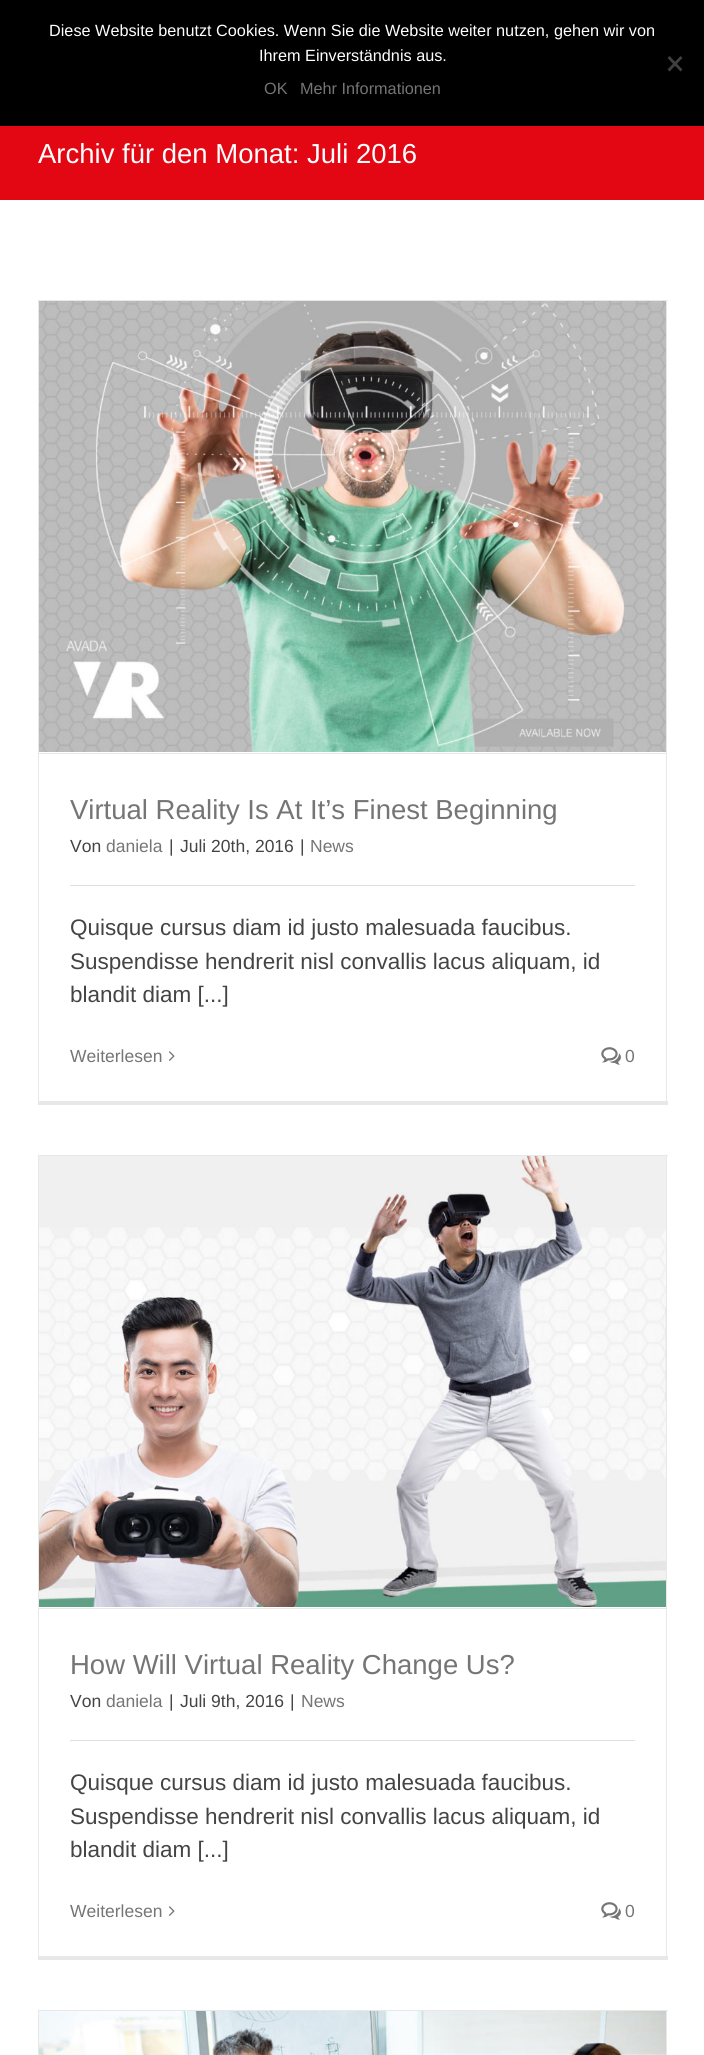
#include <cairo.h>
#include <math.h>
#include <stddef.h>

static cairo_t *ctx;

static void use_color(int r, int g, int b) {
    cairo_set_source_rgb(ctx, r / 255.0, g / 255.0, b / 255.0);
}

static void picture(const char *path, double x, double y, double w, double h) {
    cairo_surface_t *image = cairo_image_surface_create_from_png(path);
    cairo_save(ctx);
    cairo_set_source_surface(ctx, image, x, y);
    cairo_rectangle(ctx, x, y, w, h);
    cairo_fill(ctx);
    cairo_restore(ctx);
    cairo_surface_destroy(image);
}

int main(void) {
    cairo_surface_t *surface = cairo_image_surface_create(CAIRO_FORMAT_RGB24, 704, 2055);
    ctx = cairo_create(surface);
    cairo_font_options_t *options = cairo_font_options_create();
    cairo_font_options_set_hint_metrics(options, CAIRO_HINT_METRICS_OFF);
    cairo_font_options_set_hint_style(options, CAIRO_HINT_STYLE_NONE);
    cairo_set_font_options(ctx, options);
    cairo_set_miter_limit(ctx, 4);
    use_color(255, 255, 255);
    cairo_paint(ctx);
    use_color(0, 0, 0);
    cairo_rectangle(ctx, 0, 0, 704, 126);
    cairo_fill(ctx);
    cairo_select_font_face(ctx, "Liberation Sans", CAIRO_FONT_SLANT_NORMAL, CAIRO_FONT_WEIGHT_NORMAL);
    cairo_set_font_size(ctx, 16.25);
    use_color(255, 255, 255);
    cairo_move_to(ctx, 49, 36);
    cairo_show_text(ctx, "Diese Website benutzt Cookies. Wenn Sie die Website weiter nutzen, gehen wir von");
    cairo_move_to(ctx, 259, 61);
    cairo_show_text(ctx, "Ihrem Einverständnis aus.");
    use_color(64, 64, 64);
    cairo_new_path(ctx);
    cairo_move_to(ctx, 680.5, 56);
    cairo_line_to(ctx, 682.5, 58);
    cairo_line_to(ctx, 669.5, 71.5);
    cairo_line_to(ctx, 667.5, 69.5);
    cairo_close_path(ctx);
    cairo_fill(ctx);
    cairo_new_path(ctx);
    cairo_move_to(ctx, 667.5, 58);
    cairo_line_to(ctx, 669.5, 56);
    cairo_line_to(ctx, 682.5, 69.5);
    cairo_line_to(ctx, 680.5, 71.5);
    cairo_close_path(ctx);
    cairo_fill(ctx);
    use_color(117, 117, 117);
    cairo_move_to(ctx, 264, 94);
    cairo_show_text(ctx, "OK");
    cairo_move_to(ctx, 300, 94);
    cairo_show_text(ctx, "Mehr Informationen");
    use_color(227, 6, 19);
    cairo_rectangle(ctx, 0, 126, 704, 74);
    cairo_fill(ctx);
    cairo_set_font_size(ctx, 27.5);
    use_color(255, 255, 255);
    cairo_move_to(ctx, 38, 163);
    cairo_show_text(ctx, "Archiv für den Monat: Juli 2016");
    use_color(232, 232, 232);
    cairo_rectangle(ctx, 38, 300, 630, 1);
    cairo_fill(ctx);
    cairo_rectangle(ctx, 666, 300, 1, 805);
    cairo_fill(ctx);
    cairo_rectangle(ctx, 38, 1101, 630, 4);
    cairo_fill(ctx);
    cairo_rectangle(ctx, 38, 300, 1, 805);
    cairo_fill(ctx);
    cairo_rectangle(ctx, 39, 753, 627, 1);
    cairo_fill(ctx);
    picture("img1.png", 39, 301, 627, 451);
    use_color(117, 117, 117);
    cairo_move_to(ctx, 70, 819);
    cairo_show_text(ctx, "Virtual Reality Is At It’s Finest Beginning");
    cairo_set_font_size(ctx, 17.5);
    use_color(68, 68, 68);
    cairo_move_to(ctx, 70, 852);
    cairo_show_text(ctx, "Von");
    use_color(117, 117, 117);
    cairo_move_to(ctx, 106, 852);
    cairo_show_text(ctx, "daniela");
    use_color(68, 68, 68);
    cairo_move_to(ctx, 169, 852);
    cairo_show_text(ctx, "|");
    cairo_move_to(ctx, 180, 852);
    cairo_show_text(ctx, "Juli 20th, 2016");
    cairo_move_to(ctx, 300, 852);
    cairo_show_text(ctx, "|");
    use_color(117, 117, 117);
    cairo_move_to(ctx, 310, 852);
    cairo_show_text(ctx, "News");
    use_color(224, 224, 224);
    cairo_rectangle(ctx, 70, 885, 565, 1);
    cairo_fill(ctx);
    cairo_set_font_size(ctx, 22.5);
    use_color(68, 68, 68);
    cairo_move_to(ctx, 70, 935);
    cairo_show_text(ctx, "Quisque cursus diam id justo malesuada faucibus.");
    cairo_move_to(ctx, 70, 969);
    cairo_show_text(ctx, "Suspendisse hendrerit nisl convallis lacus aliquam, id");
    cairo_move_to(ctx, 70, 1002);
    cairo_show_text(ctx, "blandit diam [...]");
    cairo_set_font_size(ctx, 17.5);
    use_color(117, 117, 117);
    cairo_move_to(ctx, 70, 1062);
    cairo_show_text(ctx, "Weiterlesen");
    picture("img2.png", 168, 1051, 7, 10);
    picture("img3.png", 601, 1047, 20, 18);
    cairo_move_to(ctx, 625, 1062);
    cairo_show_text(ctx, "0");
    use_color(232, 232, 232);
    cairo_rectangle(ctx, 38, 1155, 630, 1);
    cairo_fill(ctx);
    cairo_rectangle(ctx, 666, 1155, 1, 805);
    cairo_fill(ctx);
    cairo_rectangle(ctx, 38, 1956, 630, 4);
    cairo_fill(ctx);
    cairo_rectangle(ctx, 38, 1155, 1, 805);
    cairo_fill(ctx);
    cairo_rectangle(ctx, 39, 1608, 627, 1);
    cairo_fill(ctx);
    picture("img4.png", 39, 1156, 627, 451);
    cairo_set_font_size(ctx, 27.5);
    use_color(117, 117, 117);
    cairo_move_to(ctx, 70, 1674);
    cairo_show_text(ctx, "How Will Virtual Reality Change Us?");
    cairo_set_font_size(ctx, 17.5);
    use_color(68, 68, 68);
    cairo_move_to(ctx, 70, 1707);
    cairo_show_text(ctx, "Von");
    use_color(117, 117, 117);
    cairo_move_to(ctx, 106, 1707);
    cairo_show_text(ctx, "daniela");
    use_color(68, 68, 68);
    cairo_move_to(ctx, 169, 1707);
    cairo_show_text(ctx, "|");
    cairo_move_to(ctx, 180, 1707);
    cairo_show_text(ctx, "Juli 9th, 2016");
    cairo_move_to(ctx, 290, 1707);
    cairo_show_text(ctx, "|");
    use_color(117, 117, 117);
    cairo_move_to(ctx, 301, 1707);
    cairo_show_text(ctx, "News");
    use_color(224, 224, 224);
    cairo_rectangle(ctx, 70, 1740, 565, 1);
    cairo_fill(ctx);
    cairo_set_font_size(ctx, 22.5);
    use_color(68, 68, 68);
    cairo_move_to(ctx, 70, 1790);
    cairo_show_text(ctx, "Quisque cursus diam id justo malesuada faucibus.");
    cairo_move_to(ctx, 70, 1824);
    cairo_show_text(ctx, "Suspendisse hendrerit nisl convallis lacus aliquam, id");
    cairo_move_to(ctx, 70, 1857);
    cairo_show_text(ctx, "blandit diam [...]");
    cairo_set_font_size(ctx, 17.5);
    use_color(117, 117, 117);
    cairo_move_to(ctx, 70, 1917);
    cairo_show_text(ctx, "Weiterlesen");
    picture("img2.png", 168, 1906, 7, 10);
    picture("img3.png", 601, 1902, 20, 18);
    cairo_move_to(ctx, 625, 1917);
    cairo_show_text(ctx, "0");
    use_color(232, 232, 232);
    cairo_rectangle(ctx, 38, 2010, 630, 1);
    cairo_fill(ctx);
    cairo_rectangle(ctx, 666, 2010, 1, 45);
    cairo_fill(ctx);
    cairo_rectangle(ctx, 38, 2010, 1, 45);
    cairo_fill(ctx);
    picture("img5.png", 39, 2011, 627, 44);
    cairo_surface_write_to_png(surface, "result.png");
    cairo_font_options_destroy(options);
    cairo_destroy(ctx);
    cairo_surface_destroy(surface);
    return 0;
}
